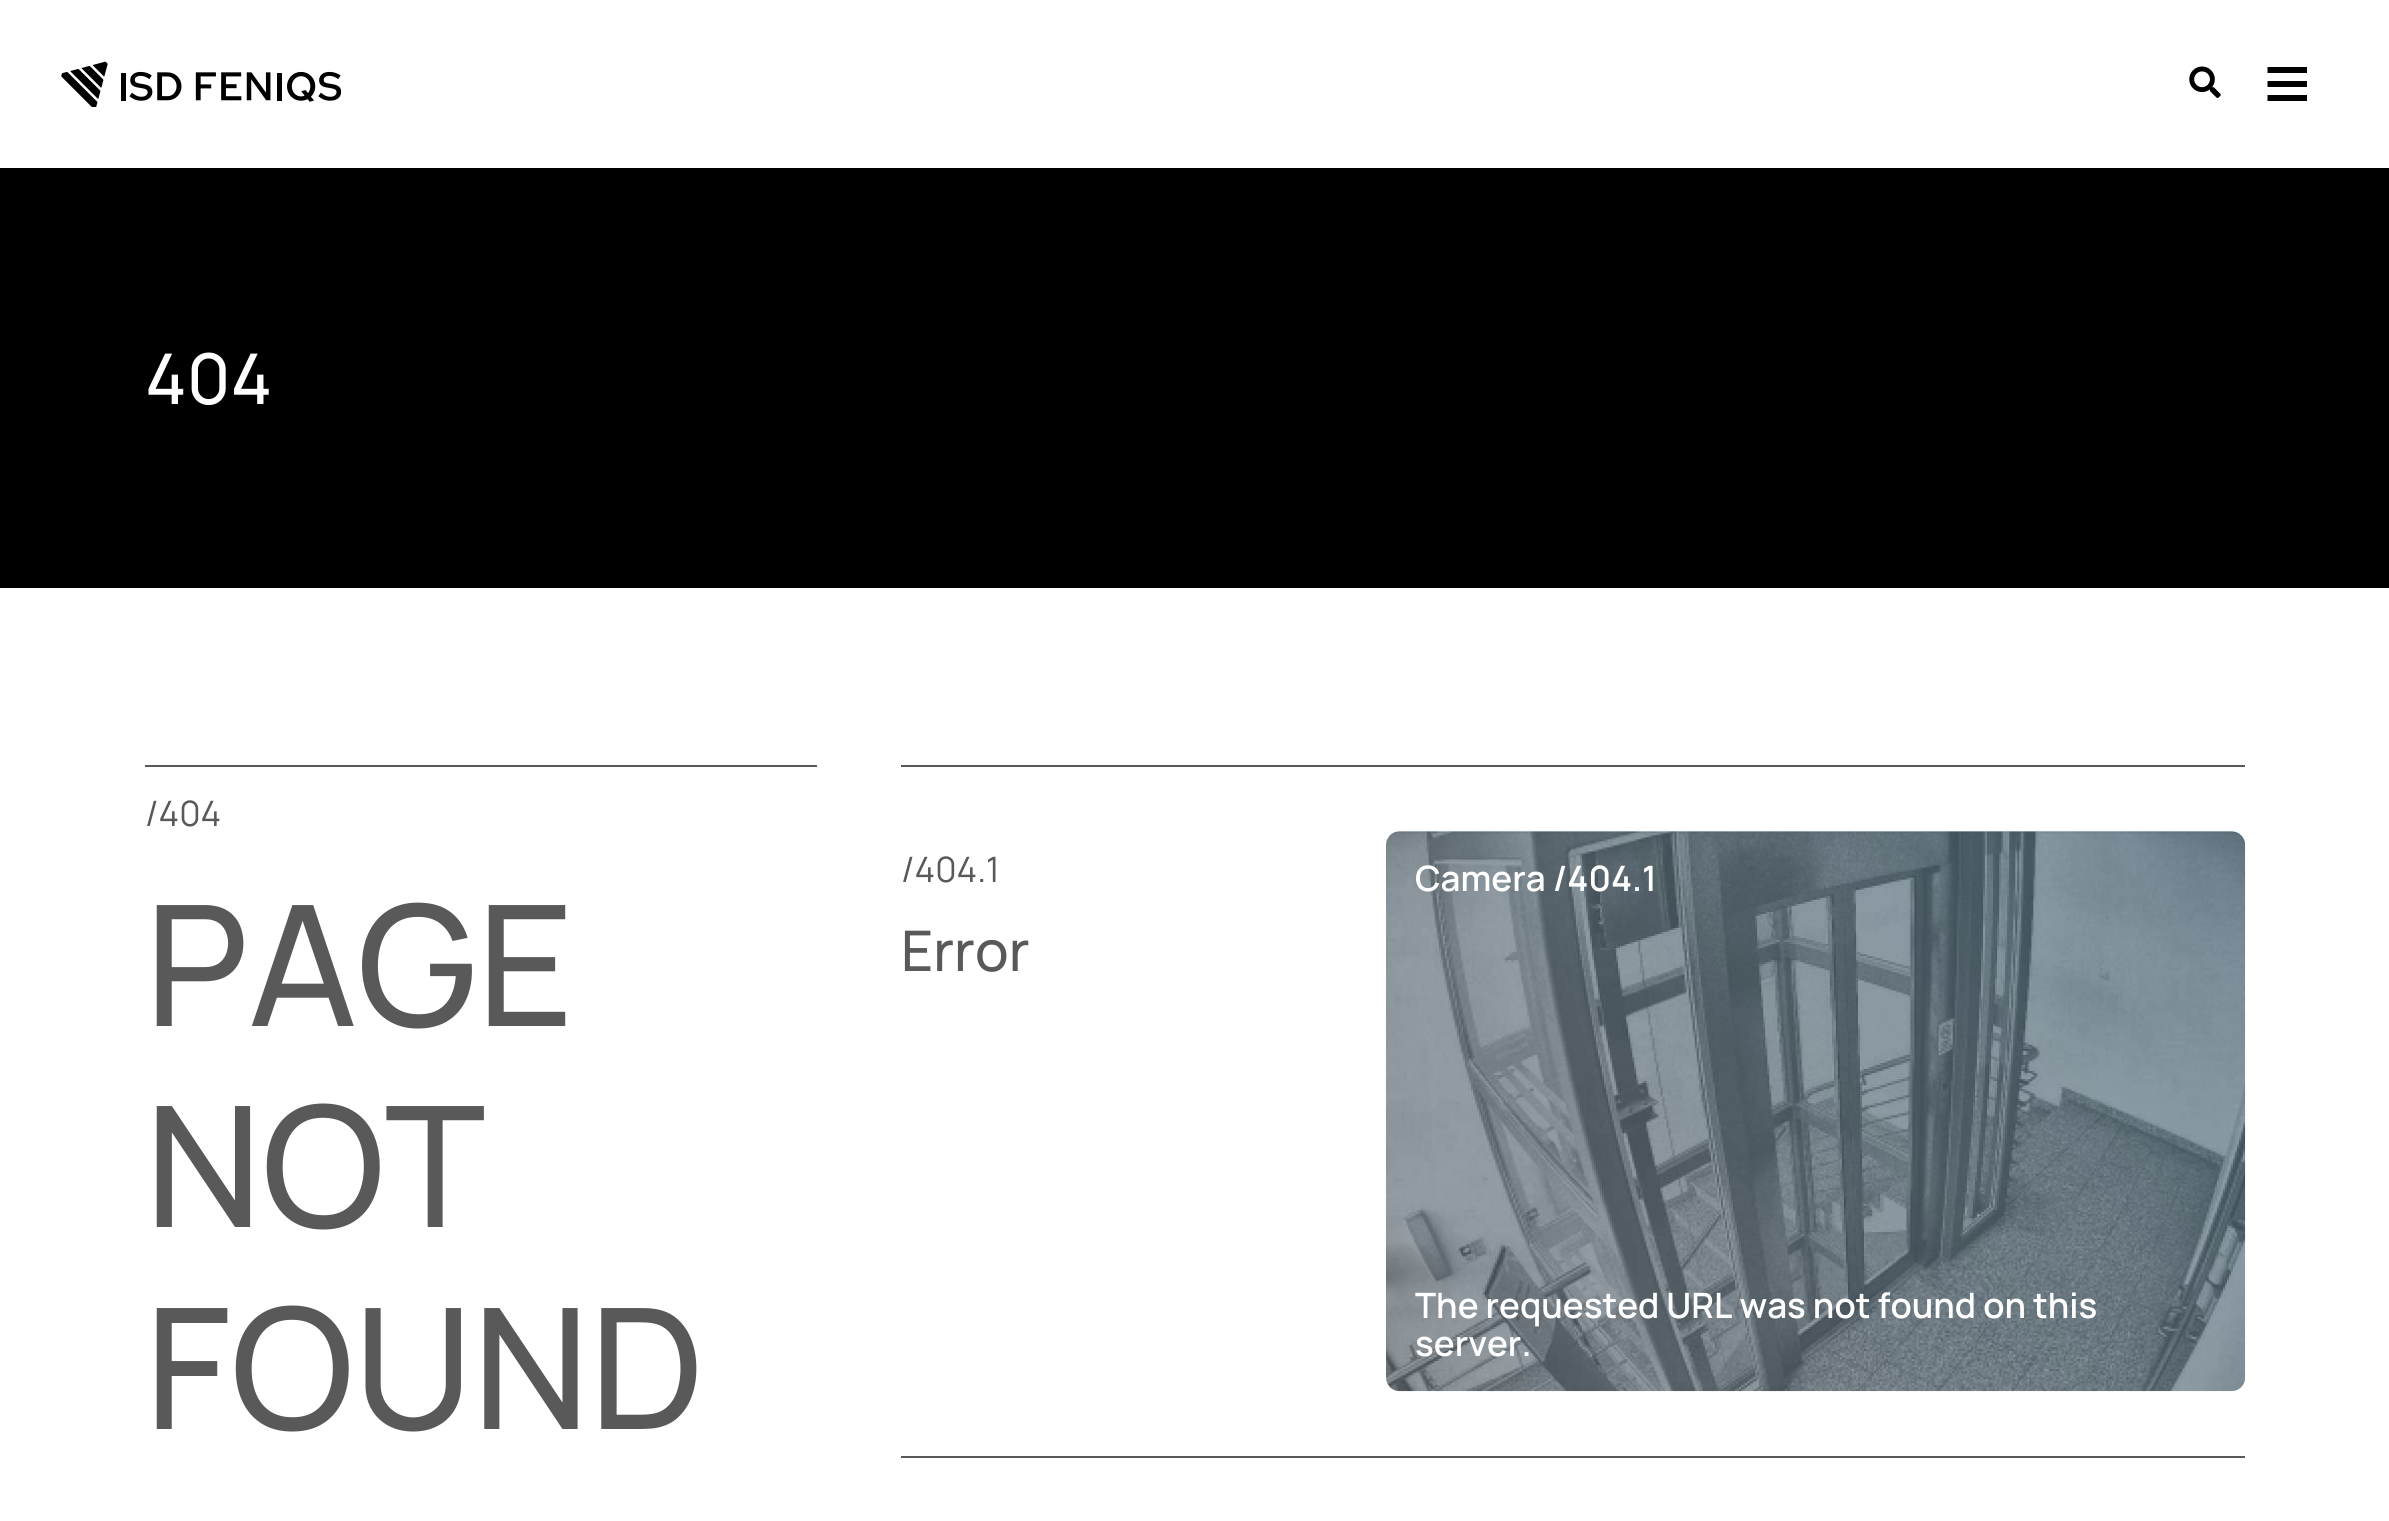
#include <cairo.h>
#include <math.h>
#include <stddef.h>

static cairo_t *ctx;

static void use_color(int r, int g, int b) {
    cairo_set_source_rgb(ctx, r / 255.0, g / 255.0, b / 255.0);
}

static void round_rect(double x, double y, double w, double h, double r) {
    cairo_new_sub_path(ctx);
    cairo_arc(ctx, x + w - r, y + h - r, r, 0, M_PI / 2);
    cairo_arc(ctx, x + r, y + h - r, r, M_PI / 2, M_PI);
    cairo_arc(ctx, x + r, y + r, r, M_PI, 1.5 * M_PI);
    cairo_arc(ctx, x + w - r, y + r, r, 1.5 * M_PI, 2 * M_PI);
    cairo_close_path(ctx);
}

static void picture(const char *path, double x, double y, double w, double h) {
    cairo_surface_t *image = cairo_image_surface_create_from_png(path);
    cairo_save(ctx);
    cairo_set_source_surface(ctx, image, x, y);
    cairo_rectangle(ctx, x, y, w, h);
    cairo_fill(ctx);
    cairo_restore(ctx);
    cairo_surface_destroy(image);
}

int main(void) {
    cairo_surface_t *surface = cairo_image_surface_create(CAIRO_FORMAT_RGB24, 2389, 1521);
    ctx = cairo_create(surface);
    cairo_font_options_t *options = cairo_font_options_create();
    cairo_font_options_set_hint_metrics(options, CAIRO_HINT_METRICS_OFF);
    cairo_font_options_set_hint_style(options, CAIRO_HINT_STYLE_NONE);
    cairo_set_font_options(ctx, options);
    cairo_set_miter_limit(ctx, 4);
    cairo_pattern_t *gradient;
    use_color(255, 255, 255);
    cairo_paint(ctx);
    picture("img1.png", 61, 61, 280, 46);
    picture("img2.png", 2189, 66, 32, 32);
    use_color(0, 0, 0);
    cairo_new_path(ctx);
    cairo_move_to(ctx, 2267.5, 87);
    cairo_line_to(ctx, 2307, 87);
    cairo_line_to(ctx, 2307, 81);
    cairo_line_to(ctx, 2267.5, 81);
    cairo_close_path(ctx);
    cairo_move_to(ctx, 2267.5, 101);
    cairo_line_to(ctx, 2307, 101);
    cairo_line_to(ctx, 2307, 95);
    cairo_line_to(ctx, 2267.5, 95);
    cairo_close_path(ctx);
    cairo_move_to(ctx, 2267.5, 67);
    cairo_line_to(ctx, 2267.5, 73);
    cairo_line_to(ctx, 2307, 73);
    cairo_line_to(ctx, 2307, 67);
    cairo_close_path(ctx);
    cairo_fill(ctx);
    cairo_rectangle(ctx, 0, 168, 2389, 420);
    cairo_fill(ctx);
    cairo_select_font_face(ctx, "Manrope Medium", CAIRO_FONT_SLANT_NORMAL, CAIRO_FONT_WEIGHT_NORMAL);
    cairo_set_font_size(ctx, 70);
    use_color(255, 255, 255);
    cairo_move_to(ctx, 145, 404);
    cairo_show_text(ctx, "404");
    use_color(89, 89, 89);
    cairo_rectangle(ctx, 145, 765, 672, 2);
    cairo_fill(ctx);
    cairo_select_font_face(ctx, "Manrope", CAIRO_FONT_SLANT_NORMAL, CAIRO_FONT_WEIGHT_NORMAL);
    cairo_set_font_size(ctx, 35);
    cairo_move_to(ctx, 145, 826);
    cairo_show_text(ctx, "/404");
    cairo_select_font_face(ctx, "Manrope Medium", CAIRO_FONT_SLANT_NORMAL, CAIRO_FONT_WEIGHT_NORMAL);
    cairo_set_font_size(ctx, 168);
    cairo_move_to(ctx, 145, 1026);
    cairo_show_text(ctx, "PAGE");
    cairo_move_to(ctx, 145, 1227);
    cairo_show_text(ctx, "NOT");
    cairo_move_to(ctx, 145, 1429);
    cairo_show_text(ctx, "FOUND");
    cairo_rectangle(ctx, 901, 765, 1344, 2);
    cairo_fill(ctx);
    cairo_select_font_face(ctx, "Manrope", CAIRO_FONT_SLANT_NORMAL, CAIRO_FONT_WEIGHT_NORMAL);
    cairo_set_font_size(ctx, 35);
    cairo_move_to(ctx, 901, 882);
    cairo_show_text(ctx, "/404.1");
    cairo_select_font_face(ctx, "Manrope Medium", CAIRO_FONT_SLANT_NORMAL, CAIRO_FONT_WEIGHT_NORMAL);
    cairo_set_font_size(ctx, 56);
    cairo_move_to(ctx, 901, 971);
    cairo_show_text(ctx, "Error");
    picture("img3.png", 1386, 831, 860, 561);
    gradient = cairo_pattern_create_linear(1426, 1438, 2206, 784);
    cairo_pattern_add_color_stop_rgba(gradient, 0, 0.024, 0.333, 0.541, 0.1);
    cairo_pattern_add_color_stop_rgba(gradient, 1, 0, 0.388, 0.631, 0.19);
    cairo_set_source(ctx, gradient);
    cairo_pattern_destroy(gradient);
    round_rect(1386, 831, 859, 560, 14);
    cairo_fill(ctx);
    cairo_select_font_face(ctx, "Manrope SemiBold", CAIRO_FONT_SLANT_NORMAL, CAIRO_FONT_WEIGHT_NORMAL);
    cairo_set_font_size(ctx, 35);
    use_color(255, 255, 255);
    cairo_move_to(ctx, 1415, 891);
    cairo_show_text(ctx, "Camera /404.1");
    cairo_move_to(ctx, 1415, 1318);
    cairo_show_text(ctx, "The requested URL was not found on this");
    cairo_move_to(ctx, 1415, 1356);
    cairo_show_text(ctx, "server.");
    use_color(89, 89, 89);
    cairo_rectangle(ctx, 901, 1456, 1344, 2);
    cairo_fill(ctx);
    cairo_surface_write_to_png(surface, "result.png");
    cairo_font_options_destroy(options);
    cairo_destroy(ctx);
    cairo_surface_destroy(surface);
    return 0;
}
